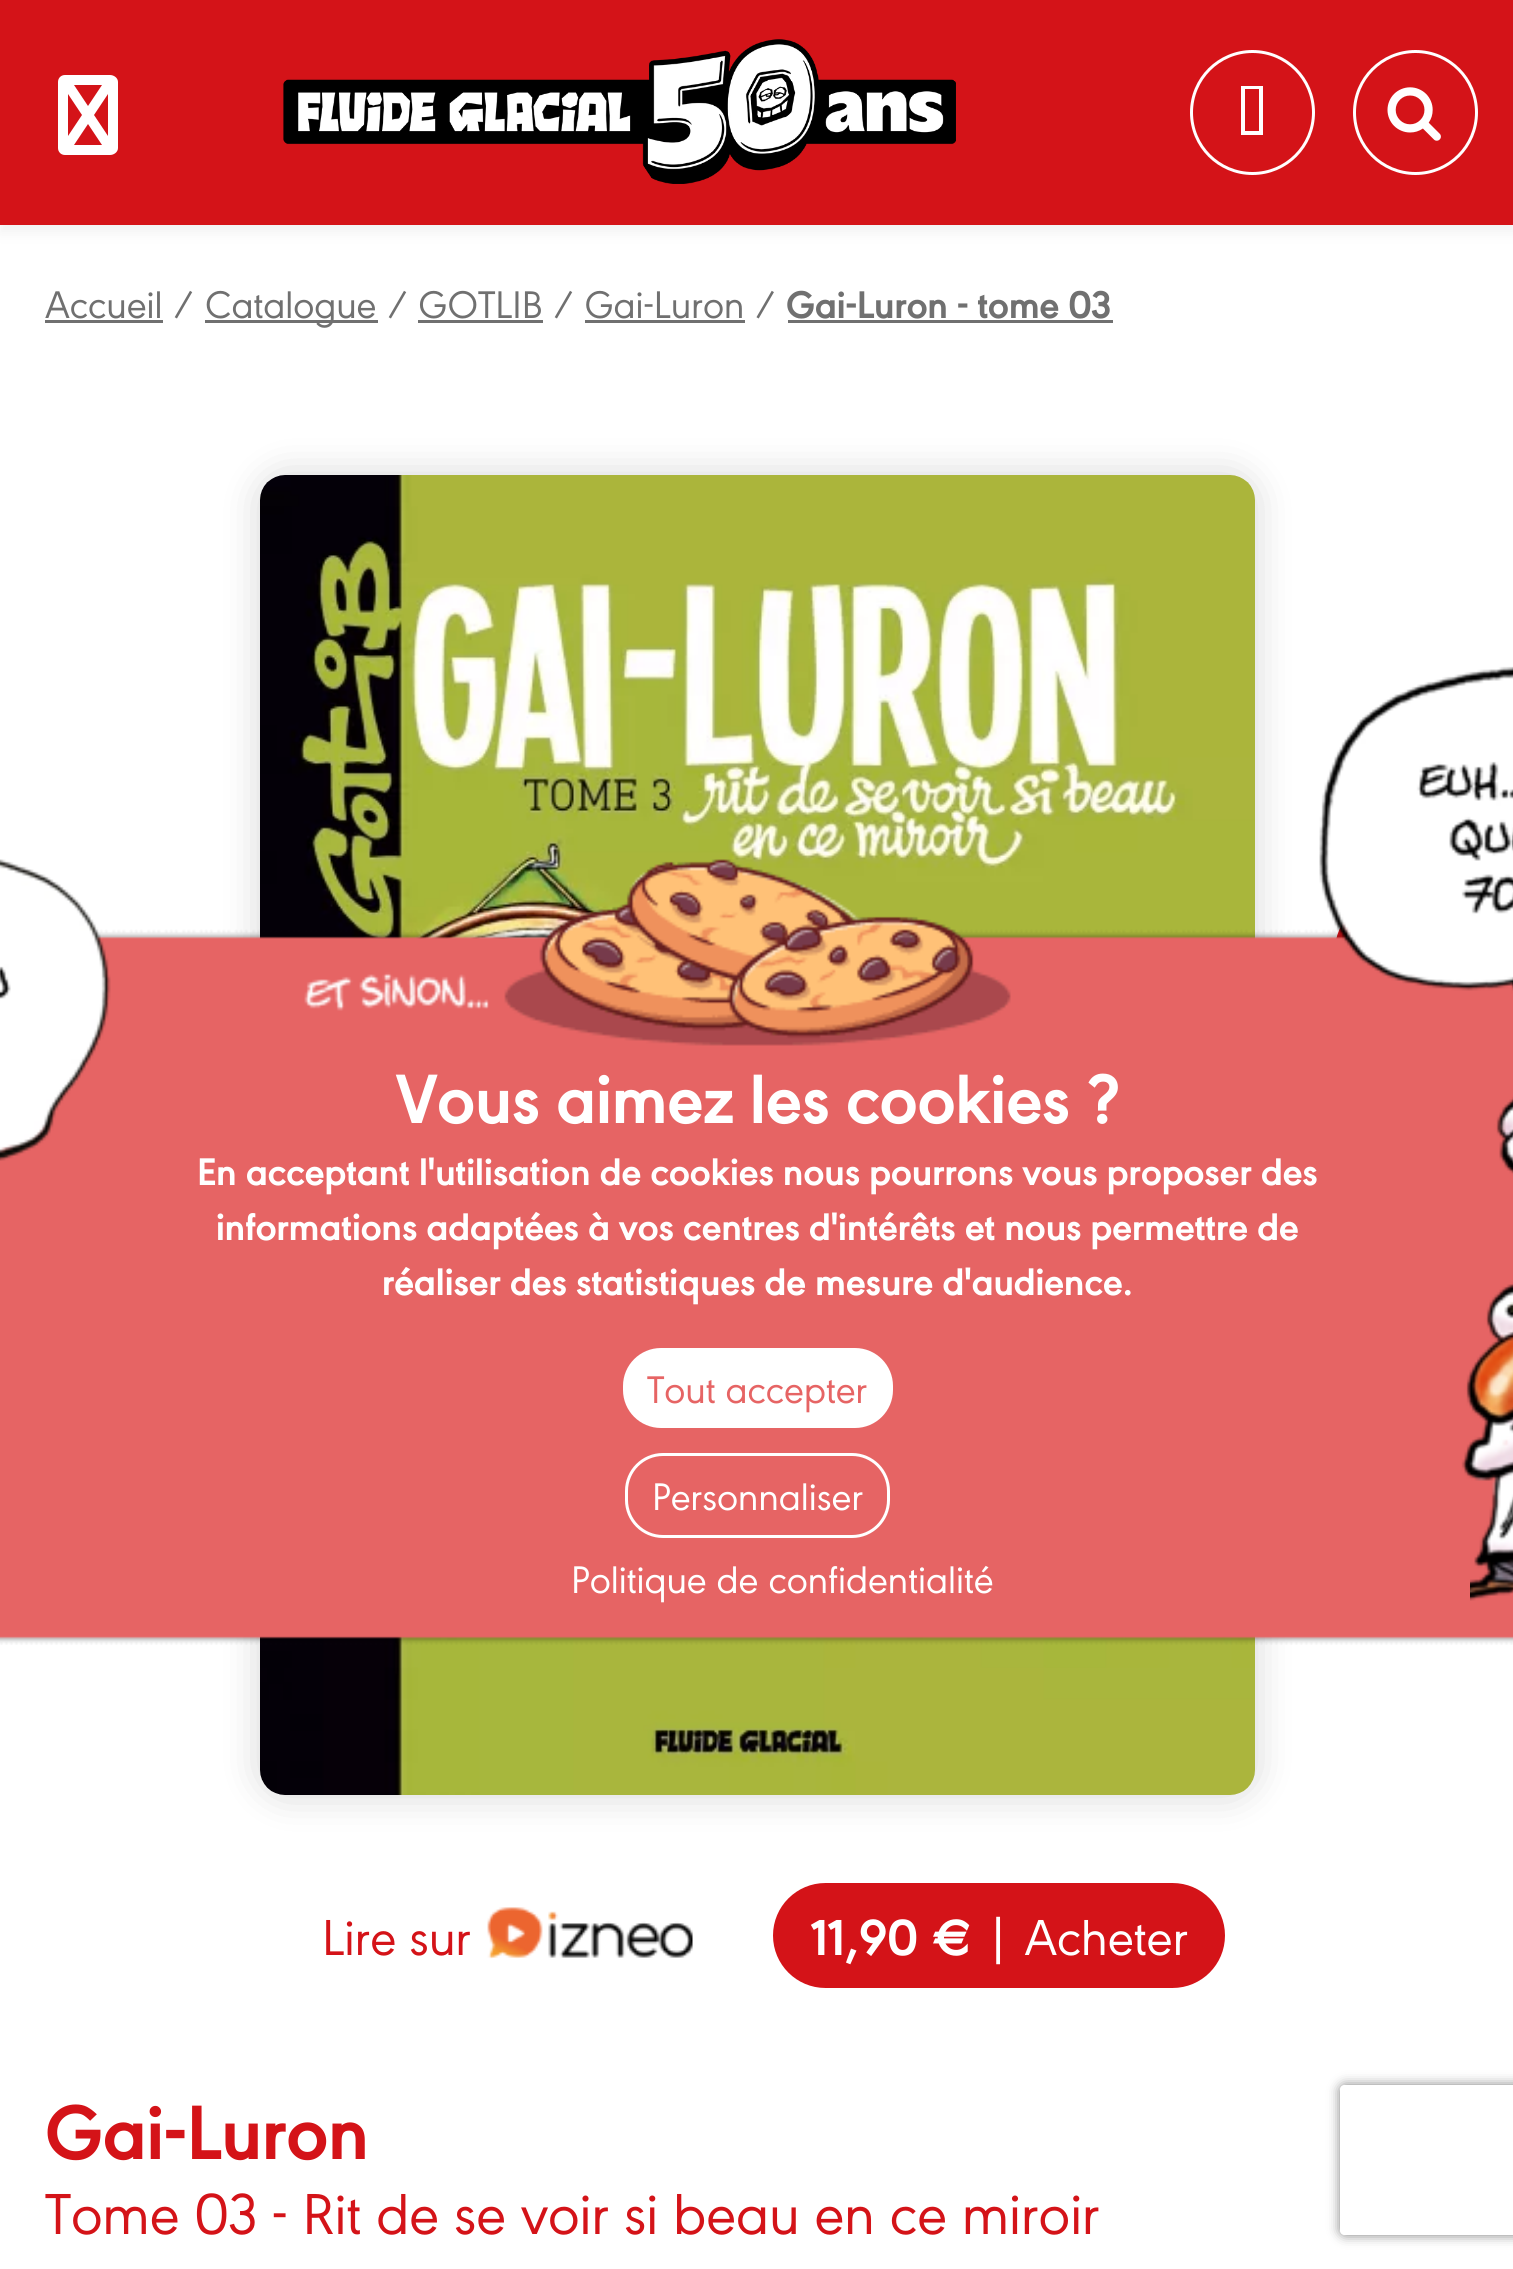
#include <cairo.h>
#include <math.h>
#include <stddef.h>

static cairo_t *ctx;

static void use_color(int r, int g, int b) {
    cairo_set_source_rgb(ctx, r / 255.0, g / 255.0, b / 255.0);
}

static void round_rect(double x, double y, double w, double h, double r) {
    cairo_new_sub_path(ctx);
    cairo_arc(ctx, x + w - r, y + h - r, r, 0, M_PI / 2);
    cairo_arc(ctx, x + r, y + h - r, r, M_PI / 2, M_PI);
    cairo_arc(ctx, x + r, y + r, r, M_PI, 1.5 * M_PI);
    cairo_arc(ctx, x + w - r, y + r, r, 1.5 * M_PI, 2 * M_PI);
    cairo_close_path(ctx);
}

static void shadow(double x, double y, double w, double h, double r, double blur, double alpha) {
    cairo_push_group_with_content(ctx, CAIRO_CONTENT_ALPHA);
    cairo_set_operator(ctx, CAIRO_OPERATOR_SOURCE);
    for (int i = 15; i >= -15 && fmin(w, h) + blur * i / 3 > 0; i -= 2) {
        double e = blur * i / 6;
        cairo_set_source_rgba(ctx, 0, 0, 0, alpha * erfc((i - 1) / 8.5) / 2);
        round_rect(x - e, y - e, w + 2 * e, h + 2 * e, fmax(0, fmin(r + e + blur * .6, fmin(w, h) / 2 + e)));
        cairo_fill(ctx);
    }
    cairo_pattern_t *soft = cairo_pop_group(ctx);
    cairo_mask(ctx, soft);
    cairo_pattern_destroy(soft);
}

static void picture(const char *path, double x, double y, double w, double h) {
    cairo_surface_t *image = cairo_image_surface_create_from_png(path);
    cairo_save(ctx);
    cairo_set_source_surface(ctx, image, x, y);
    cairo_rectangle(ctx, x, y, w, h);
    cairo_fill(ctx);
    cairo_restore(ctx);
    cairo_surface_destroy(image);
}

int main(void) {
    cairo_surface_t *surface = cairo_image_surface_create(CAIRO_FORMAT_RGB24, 1513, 2269);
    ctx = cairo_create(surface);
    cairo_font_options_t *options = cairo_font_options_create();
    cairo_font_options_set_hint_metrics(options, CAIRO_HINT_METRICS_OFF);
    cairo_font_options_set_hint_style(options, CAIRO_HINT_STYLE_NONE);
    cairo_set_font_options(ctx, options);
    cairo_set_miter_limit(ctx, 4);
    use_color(255, 255, 255);
    cairo_paint(ctx);
    use_color(238, 238, 238);
    shadow(0, 8, 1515, 225, 0, 6, 0.75);
    use_color(212, 19, 24);
    cairo_rectangle(ctx, 0, 0, 1513, 225);
    cairo_fill(ctx);
    use_color(255, 255, 255);
    cairo_new_path(ctx);
    cairo_move_to(ctx, 68, 136);
    cairo_line_to(ctx, 82, 115);
    cairo_line_to(ctx, 68, 94);
    cairo_close_path(ctx);
    cairo_move_to(ctx, 74, 145);
    cairo_line_to(ctx, 102, 145);
    cairo_line_to(ctx, 88, 124);
    cairo_close_path(ctx);
    cairo_move_to(ctx, 94, 115);
    cairo_line_to(ctx, 108, 136);
    cairo_line_to(ctx, 108, 94);
    cairo_close_path(ctx);
    cairo_move_to(ctx, 102, 85);
    cairo_line_to(ctx, 74, 85);
    cairo_line_to(ctx, 88, 106);
    cairo_close_path(ctx);
    cairo_move_to(ctx, 58, 82);
    cairo_curve_to(ctx, 58, 78, 61, 75, 65, 75);
    cairo_line_to(ctx, 110, 75);
    cairo_curve_to(ctx, 114, 75, 118, 78, 118, 82);
    cairo_line_to(ctx, 118, 148);
    cairo_curve_to(ctx, 118, 152, 114, 155, 110, 155);
    cairo_line_to(ctx, 65, 155);
    cairo_curve_to(ctx, 61, 155, 58, 152, 58, 148);
    cairo_close_path(ctx);
    cairo_fill(ctx);
    picture("img1.png", 283, 39, 673, 145);
    cairo_arc(ctx, 1252.5, 112.5, 61, 0, 2 * M_PI);
    cairo_set_line_width(ctx, 3);
    cairo_stroke(ctx);
    cairo_new_path(ctx);
    cairo_move_to(ctx, 1245, 131);
    cairo_line_to(ctx, 1259, 131);
    cairo_line_to(ctx, 1259, 89);
    cairo_line_to(ctx, 1245, 89);
    cairo_close_path(ctx);
    cairo_move_to(ctx, 1241, 135);
    cairo_line_to(ctx, 1241, 86);
    cairo_line_to(ctx, 1263, 86);
    cairo_line_to(ctx, 1263, 135);
    cairo_close_path(ctx);
    cairo_fill(ctx);
    cairo_arc(ctx, 1415.5, 112.5, 61, 0, 2 * M_PI);
    cairo_stroke(ctx);
    picture("img2.png", 1387, 87, 54, 54);
    cairo_select_font_face(ctx, "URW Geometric", CAIRO_FONT_SLANT_NORMAL, CAIRO_FONT_WEIGHT_NORMAL);
    cairo_set_font_size(ctx, 40);
    use_color(112, 112, 112);
    cairo_move_to(ctx, 45, 318);
    cairo_show_text(ctx, "Accueil /");
    cairo_rectangle(ctx, 45, 320, 118, 3);
    cairo_fill(ctx);
    cairo_rectangle(ctx, 205, 320, 173, 3);
    cairo_fill(ctx);
    cairo_move_to(ctx, 205, 318);
    cairo_show_text(ctx, "Catalogue / GOTLIB / Gai-Luron /");
    cairo_select_font_face(ctx, "URW Geometric", CAIRO_FONT_SLANT_NORMAL, CAIRO_FONT_WEIGHT_BOLD);
    cairo_move_to(ctx, 786, 318);
    cairo_show_text(ctx, "Gai-Luron - tome 03");
    cairo_rectangle(ctx, 788, 320, 325, 3);
    cairo_fill(ctx);
    cairo_rectangle(ctx, 418, 320, 125, 3);
    cairo_fill(ctx);
    cairo_rectangle(ctx, 585, 320, 160, 3);
    cairo_fill(ctx);
    use_color(0, 0, 0);
    shadow(1335, 908, 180, 470, 50, 7.5, 0.16);
    use_color(212, 19, 24);
    cairo_new_path(ctx);
    cairo_move_to(ctx, 1385, 900);
    cairo_line_to(ctx, 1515, 900);
    cairo_line_to(ctx, 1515, 1370);
    cairo_line_to(ctx, 1385, 1370);
    cairo_curve_to(ctx, 1357.5, 1370, 1335, 1347.5, 1335, 1320);
    cairo_line_to(ctx, 1335, 950);
    cairo_curve_to(ctx, 1335, 922.5, 1357.5, 900, 1385, 900);
    cairo_close_path(ctx);
    cairo_fill(ctx);
    use_color(0, 0, 0);
    shadow(260, 475, 995, 1320, 25, 20, 0.16);
    picture("img3.png", 260, 475, 995, 1320);
    cairo_select_font_face(ctx, "URW Geometric", CAIRO_FONT_SLANT_NORMAL, CAIRO_FONT_WEIGHT_NORMAL);
    cairo_set_font_size(ctx, 52.5);
    use_color(212, 19, 24);
    cairo_move_to(ctx, 322, 1955);
    cairo_show_text(ctx, "Lire sur");
    picture("img4.png", 487, 1907, 206, 52);
    round_rect(770.5, 1880.5, 457, 110, 55);
    cairo_fill_preserve(ctx);
    use_color(255, 255, 255);
    cairo_set_line_width(ctx, 5);
    cairo_stroke(ctx);
    cairo_select_font_face(ctx, "URW Geometric", CAIRO_FONT_SLANT_NORMAL, CAIRO_FONT_WEIGHT_BOLD);
    cairo_move_to(ctx, 811, 1955);
    cairo_show_text(ctx, "11,90 €");
    cairo_select_font_face(ctx, "URW Geometric", CAIRO_FONT_SLANT_NORMAL, CAIRO_FONT_WEIGHT_NORMAL);
    cairo_move_to(ctx, 985, 1955);
    cairo_show_text(ctx, "| Acheter");
    cairo_select_font_face(ctx, "URW Geometric", CAIRO_FONT_SLANT_NORMAL, CAIRO_FONT_WEIGHT_BOLD);
    cairo_set_font_size(ctx, 80);
    use_color(212, 19, 24);
    cairo_move_to(ctx, 45, 2159);
    cairo_show_text(ctx, "Gai-Luron");
    cairo_select_font_face(ctx, "URW Geometric", CAIRO_FONT_SLANT_NORMAL, CAIRO_FONT_WEIGHT_NORMAL);
    cairo_set_font_size(ctx, 60);
    cairo_move_to(ctx, 45, 2234);
    cairo_show_text(ctx, "Tome 03 - Rit de se voir si beau en ce miroir");
    picture("img5.png", 0, 666, 1513, 979);
    cairo_select_font_face(ctx, "URW Geometric", CAIRO_FONT_SLANT_NORMAL, CAIRO_FONT_WEIGHT_BOLD);
    cairo_set_font_size(ctx, 72.5);
    use_color(255, 255, 255);
    cairo_move_to(ctx, 396, 1123);
    cairo_show_text(ctx, "Vous aimez les cookies ?");
    cairo_set_font_size(ctx, 40);
    cairo_move_to(ctx, 197, 1185);
    cairo_show_text(ctx, "En acceptant l'utilisation de cookies nous pourrons vous proposer des");
    cairo_move_to(ctx, 216, 1240);
    cairo_show_text(ctx, "informations adaptées à vos centres d'intérêts et nous permettre de");
    cairo_move_to(ctx, 382, 1295);
    cairo_show_text(ctx, "réaliser des statistiques de mesure d'audience.");
    round_rect(623, 1348, 270, 80, 38);
    cairo_fill(ctx);
    cairo_select_font_face(ctx, "URW Geometric", CAIRO_FONT_SLANT_NORMAL, CAIRO_FONT_WEIGHT_NORMAL);
    use_color(230, 100, 100);
    cairo_move_to(ctx, 647, 1403);
    cairo_show_text(ctx, "Tout accepter");
    round_rect(626.5, 1454.5, 262, 82, 36.5);
    use_color(255, 255, 255);
    cairo_set_line_width(ctx, 3);
    cairo_stroke(ctx);
    cairo_move_to(ctx, 652, 1510);
    cairo_show_text(ctx, "Personnaliser");
    use_color(230, 100, 100);
    round_rect(95, 1538, 1375, 80, 10);
    cairo_fill(ctx);
    use_color(255, 255, 255);
    cairo_move_to(ctx, 571, 1593);
    cairo_show_text(ctx, "Politique de confidentialité");
    cairo_save(ctx);
    cairo_set_fill_rule(ctx, CAIRO_FILL_RULE_EVEN_ODD);
    cairo_new_path(ctx);
    cairo_move_to(ctx, 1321, 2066);
    cairo_line_to(ctx, 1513, 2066);
    cairo_line_to(ctx, 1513, 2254);
    cairo_line_to(ctx, 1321, 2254);
    cairo_close_path(ctx);
    cairo_move_to(ctx, 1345, 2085);
    cairo_line_to(ctx, 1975, 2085);
    cairo_curve_to(ctx, 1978, 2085, 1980, 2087, 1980, 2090);
    cairo_line_to(ctx, 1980, 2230);
    cairo_curve_to(ctx, 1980, 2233, 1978, 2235, 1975, 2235);
    cairo_line_to(ctx, 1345, 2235);
    cairo_curve_to(ctx, 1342, 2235, 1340, 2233, 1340, 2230);
    cairo_line_to(ctx, 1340, 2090);
    cairo_curve_to(ctx, 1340, 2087, 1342, 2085, 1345, 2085);
    cairo_close_path(ctx);
    cairo_clip(ctx);
    use_color(128, 128, 128);
    shadow(1340, 2085, 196, 150, 5, 6, 1);
    cairo_restore(ctx);
    cairo_surface_write_to_png(surface, "result.png");
    cairo_font_options_destroy(options);
    cairo_destroy(ctx);
    cairo_surface_destroy(surface);
    return 0;
}
